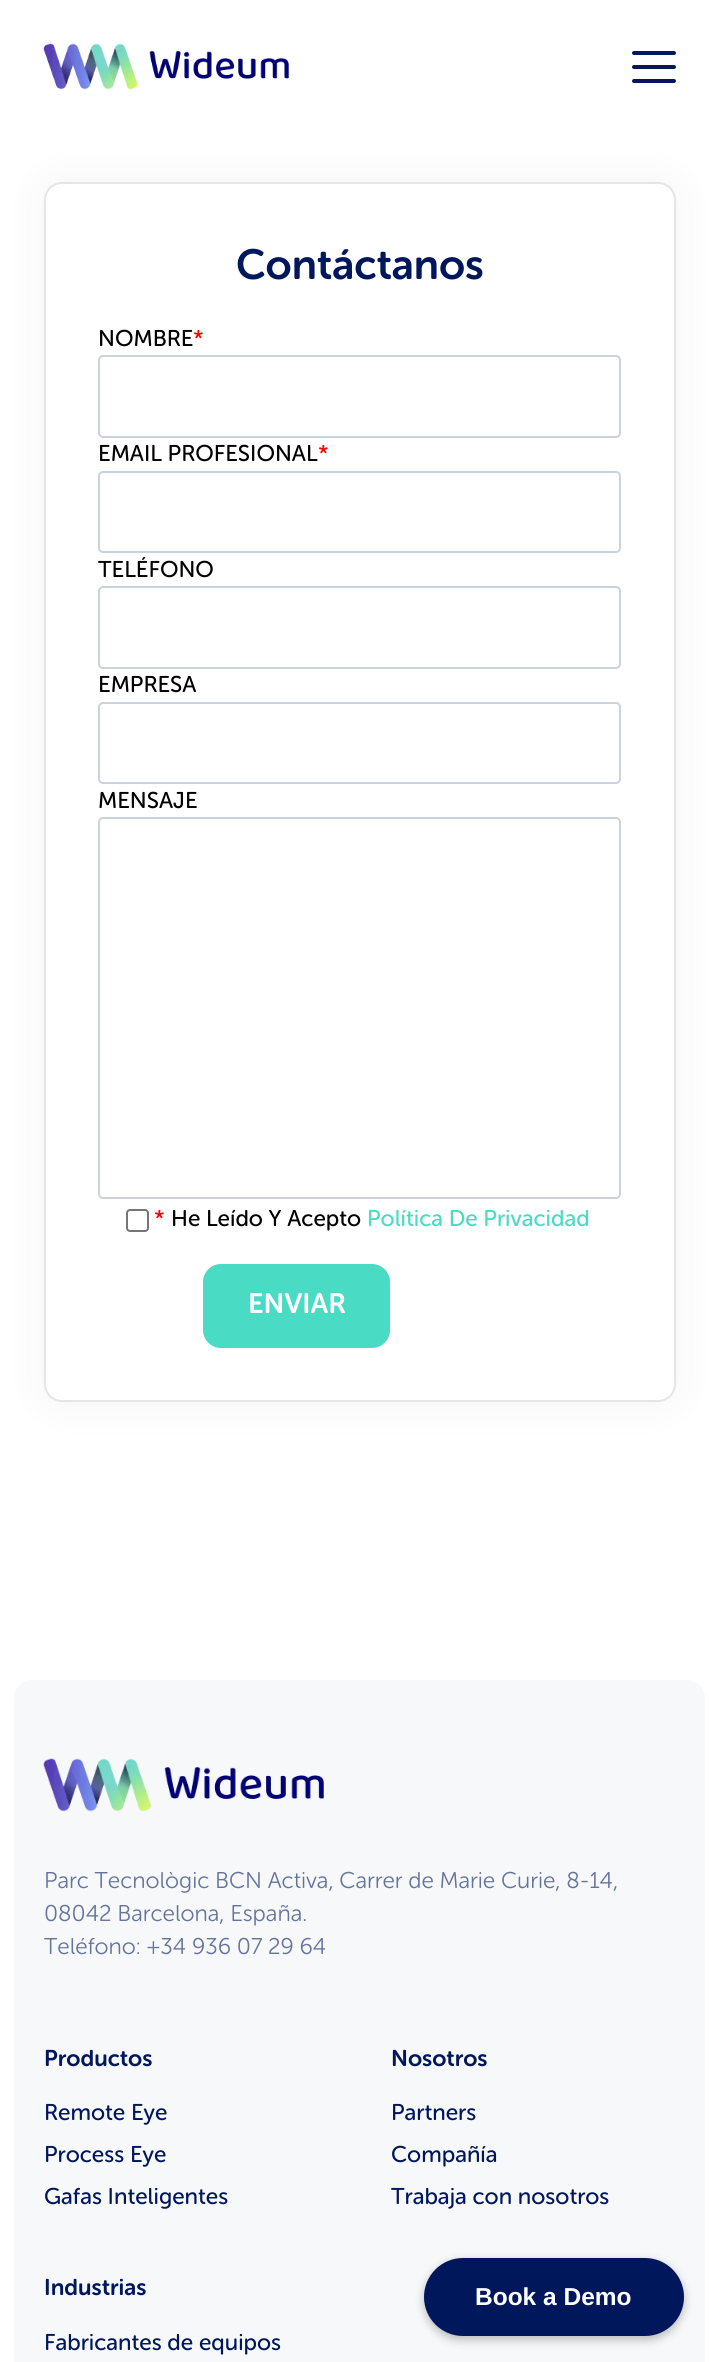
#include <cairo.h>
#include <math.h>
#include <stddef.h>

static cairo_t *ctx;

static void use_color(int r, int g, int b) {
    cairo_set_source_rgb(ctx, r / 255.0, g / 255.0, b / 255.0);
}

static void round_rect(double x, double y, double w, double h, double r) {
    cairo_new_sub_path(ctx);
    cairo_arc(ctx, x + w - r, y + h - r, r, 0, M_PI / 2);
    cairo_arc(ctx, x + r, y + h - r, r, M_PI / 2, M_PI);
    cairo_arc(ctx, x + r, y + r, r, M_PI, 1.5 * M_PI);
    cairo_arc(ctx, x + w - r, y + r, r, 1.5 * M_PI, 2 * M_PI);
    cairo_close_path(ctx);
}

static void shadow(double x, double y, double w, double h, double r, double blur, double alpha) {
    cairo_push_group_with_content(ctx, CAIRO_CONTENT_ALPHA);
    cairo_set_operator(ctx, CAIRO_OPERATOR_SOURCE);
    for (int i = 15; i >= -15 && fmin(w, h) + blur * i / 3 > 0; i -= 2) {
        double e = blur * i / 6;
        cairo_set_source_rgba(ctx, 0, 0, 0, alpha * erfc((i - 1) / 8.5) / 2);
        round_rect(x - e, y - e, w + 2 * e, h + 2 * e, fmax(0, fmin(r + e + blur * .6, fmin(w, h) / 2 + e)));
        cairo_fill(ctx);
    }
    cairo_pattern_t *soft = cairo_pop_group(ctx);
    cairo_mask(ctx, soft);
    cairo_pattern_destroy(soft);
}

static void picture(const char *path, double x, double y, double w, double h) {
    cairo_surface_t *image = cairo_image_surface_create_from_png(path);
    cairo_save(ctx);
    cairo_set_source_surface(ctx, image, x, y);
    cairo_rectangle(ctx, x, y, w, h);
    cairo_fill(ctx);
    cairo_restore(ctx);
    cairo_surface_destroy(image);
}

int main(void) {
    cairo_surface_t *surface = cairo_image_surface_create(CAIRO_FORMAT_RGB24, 718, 2362);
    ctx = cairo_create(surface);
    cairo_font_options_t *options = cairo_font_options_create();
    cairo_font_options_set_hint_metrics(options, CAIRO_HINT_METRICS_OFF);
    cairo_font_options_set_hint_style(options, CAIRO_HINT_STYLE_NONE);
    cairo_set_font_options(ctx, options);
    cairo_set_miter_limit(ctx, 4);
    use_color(255, 255, 255);
    cairo_paint(ctx);
    picture("img1.png", 43, 43, 246, 47);
    use_color(0, 23, 92);
    round_rect(632, 51, 44, 4, 2);
    cairo_fill(ctx);
    round_rect(632, 65, 44, 4, 2);
    cairo_fill(ctx);
    round_rect(632, 79, 44, 4, 2);
    cairo_fill(ctx);
    use_color(0, 0, 0);
    shadow(44, 182, 632, 1220, 18, 21, 0.05);
    use_color(255, 255, 255);
    round_rect(45, 183, 630, 1218, 17);
    cairo_fill_preserve(ctx);
    use_color(229, 229, 229);
    cairo_stroke(ctx);
    cairo_select_font_face(ctx, "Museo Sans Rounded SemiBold", CAIRO_FONT_SLANT_NORMAL, CAIRO_FONT_WEIGHT_NORMAL);
    cairo_set_font_size(ctx, 42);
    use_color(0, 23, 92);
    cairo_move_to(ctx, 236, 279);
    cairo_show_text(ctx, "Contáctanos");
    cairo_select_font_face(ctx, "Museo Sans Rounded", CAIRO_FONT_SLANT_NORMAL, CAIRO_FONT_WEIGHT_NORMAL);
    cairo_set_font_size(ctx, 22.75);
    use_color(0, 0, 0);
    cairo_move_to(ctx, 98, 346);
    cairo_show_text(ctx, "NOMBRE");
    use_color(255, 0, 0);
    cairo_move_to(ctx, 193, 346);
    cairo_show_text(ctx, "*");
    round_rect(99, 356, 521, 81, 4);
    use_color(204, 209, 222);
    cairo_stroke(ctx);
    use_color(0, 0, 0);
    cairo_move_to(ctx, 98, 461);
    cairo_show_text(ctx, "EMAIL PROFESIONAL");
    use_color(255, 0, 0);
    cairo_move_to(ctx, 318, 461);
    cairo_show_text(ctx, "*");
    round_rect(99, 472, 521, 80, 4);
    use_color(204, 209, 222);
    cairo_stroke(ctx);
    use_color(0, 0, 0);
    cairo_move_to(ctx, 98, 577);
    cairo_show_text(ctx, "TELÉFONO");
    round_rect(99, 587, 521, 81, 4);
    use_color(204, 209, 222);
    cairo_stroke(ctx);
    use_color(0, 0, 0);
    cairo_move_to(ctx, 98, 692);
    cairo_show_text(ctx, "EMPRESA");
    round_rect(99, 703, 521, 80, 4);
    use_color(204, 209, 222);
    cairo_stroke(ctx);
    use_color(0, 0, 0);
    cairo_move_to(ctx, 98, 808);
    cairo_show_text(ctx, "MENSAJE");
    round_rect(99, 818, 521, 380, 4);
    use_color(204, 209, 222);
    cairo_stroke(ctx);
    round_rect(127, 1210, 21, 21, 3);
    use_color(118, 118, 118);
    cairo_stroke(ctx);
    use_color(255, 0, 0);
    cairo_move_to(ctx, 154, 1226);
    cairo_show_text(ctx, "*");
    use_color(0, 0, 0);
    cairo_move_to(ctx, 171, 1226);
    cairo_show_text(ctx, "He Leído Y Acepto");
    use_color(74, 219, 196);
    cairo_move_to(ctx, 367, 1226);
    cairo_show_text(ctx, "Política De Privacidad");
    round_rect(203, 1264, 187, 84, 18);
    cairo_fill(ctx);
    cairo_select_font_face(ctx, "Museo Sans Rounded SemiBold", CAIRO_FONT_SLANT_NORMAL, CAIRO_FONT_WEIGHT_NORMAL);
    cairo_set_font_size(ctx, 28);
    use_color(255, 255, 255);
    cairo_move_to(ctx, 248, 1313);
    cairo_show_text(ctx, "ENVIAR");
    use_color(247, 248, 250);
    round_rect(14, 1680, 691, 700, 18);
    cairo_fill(ctx);
    picture("img2.png", 43, 1758, 281, 54);
    cairo_select_font_face(ctx, "Museo Sans Rounded Light", CAIRO_FONT_SLANT_NORMAL, CAIRO_FONT_WEIGHT_NORMAL);
    cairo_set_font_size(ctx, 22.75);
    use_color(102, 116, 157);
    cairo_move_to(ctx, 44, 1888);
    cairo_show_text(ctx, "Parc Tecnològic BCN Activa, Carrer de Marie Curie, 8-14,");
    cairo_move_to(ctx, 44, 1921);
    cairo_show_text(ctx, "08042 Barcelona, España.");
    cairo_move_to(ctx, 44, 1954);
    cairo_show_text(ctx, "Teléfono: +34 936 07 29 64");
    cairo_select_font_face(ctx, "Museo Sans Rounded SemiBold", CAIRO_FONT_SLANT_NORMAL, CAIRO_FONT_WEIGHT_NORMAL);
    use_color(0, 23, 92);
    cairo_move_to(ctx, 44, 2066);
    cairo_show_text(ctx, "Productos");
    cairo_select_font_face(ctx, "Museo Sans Rounded", CAIRO_FONT_SLANT_NORMAL, CAIRO_FONT_WEIGHT_NORMAL);
    cairo_move_to(ctx, 44, 2120);
    cairo_show_text(ctx, "Remote Eye");
    cairo_move_to(ctx, 44, 2162);
    cairo_show_text(ctx, "Process Eye");
    cairo_move_to(ctx, 44, 2204);
    cairo_show_text(ctx, "Gafas Inteligentes");
    cairo_select_font_face(ctx, "Museo Sans Rounded SemiBold", CAIRO_FONT_SLANT_NORMAL, CAIRO_FONT_WEIGHT_NORMAL);
    cairo_move_to(ctx, 391, 2066);
    cairo_show_text(ctx, "Nosotros");
    cairo_select_font_face(ctx, "Museo Sans Rounded", CAIRO_FONT_SLANT_NORMAL, CAIRO_FONT_WEIGHT_NORMAL);
    cairo_move_to(ctx, 391, 2120);
    cairo_show_text(ctx, "Partners");
    cairo_move_to(ctx, 391, 2162);
    cairo_show_text(ctx, "Compañía");
    cairo_move_to(ctx, 391, 2204);
    cairo_show_text(ctx, "Trabaja con nosotros");
    cairo_select_font_face(ctx, "Museo Sans Rounded SemiBold", CAIRO_FONT_SLANT_NORMAL, CAIRO_FONT_WEIGHT_NORMAL);
    cairo_move_to(ctx, 44, 2295);
    cairo_show_text(ctx, "Industrias");
    cairo_select_font_face(ctx, "Museo Sans Rounded", CAIRO_FONT_SLANT_NORMAL, CAIRO_FONT_WEIGHT_NORMAL);
    cairo_move_to(ctx, 44, 2350);
    cairo_show_text(ctx, "Fabricantes de equipos");
    use_color(0, 0, 0);
    shadow(424, 2261, 260, 79, 39.5, 4.5, 0.25);
    use_color(0, 23, 92);
    round_rect(424, 2258, 260, 78, 39);
    cairo_fill(ctx);
    cairo_select_font_face(ctx, "Liberation Sans", CAIRO_FONT_SLANT_NORMAL, CAIRO_FONT_WEIGHT_BOLD);
    cairo_set_font_size(ctx, 24.5);
    use_color(255, 255, 255);
    cairo_move_to(ctx, 475, 2305);
    cairo_show_text(ctx, "Book a Demo");
    cairo_surface_write_to_png(surface, "result.png");
    cairo_font_options_destroy(options);
    cairo_destroy(ctx);
    cairo_surface_destroy(surface);
    return 0;
}
